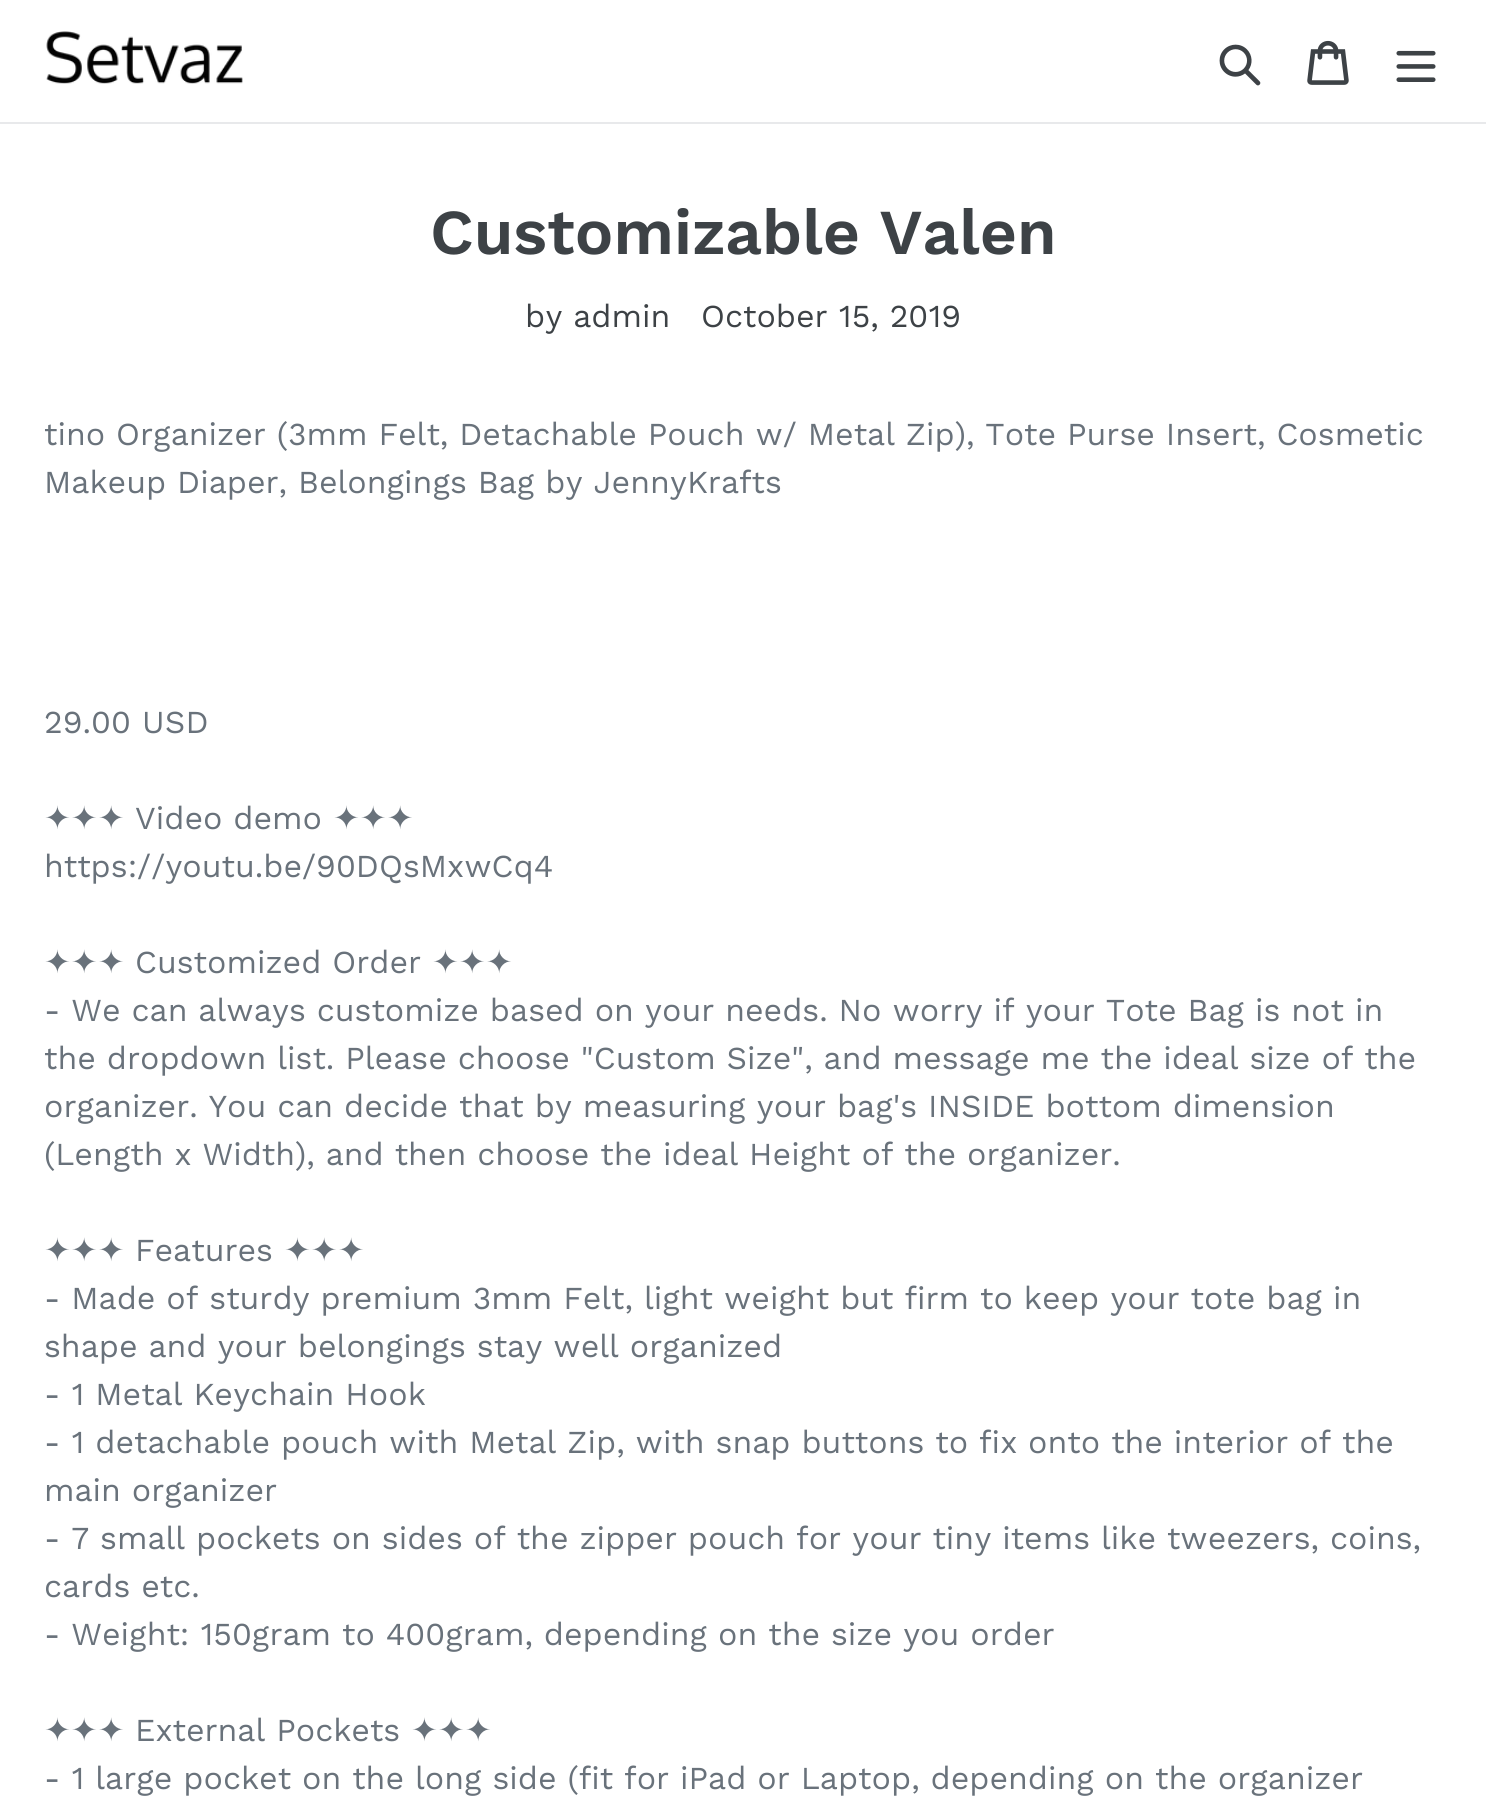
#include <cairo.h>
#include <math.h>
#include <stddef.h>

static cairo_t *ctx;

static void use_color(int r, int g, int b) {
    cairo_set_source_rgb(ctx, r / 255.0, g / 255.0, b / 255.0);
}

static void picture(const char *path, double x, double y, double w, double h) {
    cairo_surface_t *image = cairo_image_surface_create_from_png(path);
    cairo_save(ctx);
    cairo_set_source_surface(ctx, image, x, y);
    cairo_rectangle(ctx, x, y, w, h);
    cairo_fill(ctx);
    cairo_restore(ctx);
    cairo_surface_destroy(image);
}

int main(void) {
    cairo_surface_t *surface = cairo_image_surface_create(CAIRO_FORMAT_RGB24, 1486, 1804);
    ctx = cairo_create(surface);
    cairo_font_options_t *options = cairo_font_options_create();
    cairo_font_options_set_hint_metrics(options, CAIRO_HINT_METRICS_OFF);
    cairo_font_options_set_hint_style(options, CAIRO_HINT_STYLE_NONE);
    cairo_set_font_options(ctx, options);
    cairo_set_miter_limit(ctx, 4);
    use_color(255, 255, 255);
    cairo_paint(ctx);
    use_color(232, 233, 235);
    cairo_rectangle(ctx, 0, 122, 1486, 2);
    cairo_fill(ctx);
    picture("img1.png", 46, 31, 197, 53);
    picture("img2.png", 1219, 44, 42, 42);
    picture("img3.png", 1307, 40, 42, 45);
    picture("img4.png", 1396, 50, 40, 32);
    cairo_select_font_face(ctx, "Work Sans SemiBold", CAIRO_FONT_SLANT_NORMAL, CAIRO_FONT_WEIGHT_NORMAL);
    cairo_set_font_size(ctx, 64);
    use_color(61, 66, 70);
    cairo_move_to(ctx, 430, 254);
    cairo_show_text(ctx, "Customizable Valen");
    cairo_select_font_face(ctx, "Work Sans", CAIRO_FONT_SLANT_NORMAL, CAIRO_FONT_WEIGHT_NORMAL);
    cairo_set_font_size(ctx, 32);
    cairo_move_to(ctx, 525, 327);
    cairo_show_text(ctx, "by admin");
    cairo_move_to(ctx, 701, 327);
    cairo_show_text(ctx, "October 15, 2019");
    use_color(105, 114, 123);
    cairo_move_to(ctx, 44, 445);
    cairo_show_text(ctx, "tino Organizer (3mm Felt, Detachable Pouch w/ Metal Zip), Tote Purse Insert, Cosmetic");
    cairo_move_to(ctx, 44, 493);
    cairo_show_text(ctx, "Makeup Diaper, Belongings Bag by JennyKrafts");
    cairo_move_to(ctx, 44, 733);
    cairo_show_text(ctx, "29.00 USD");
    cairo_select_font_face(ctx, "DejaVu Sans", CAIRO_FONT_SLANT_NORMAL, CAIRO_FONT_WEIGHT_NORMAL);
    cairo_move_to(ctx, 44, 829);
    cairo_show_text(ctx, "✦✦✦");
    cairo_select_font_face(ctx, "Work Sans", CAIRO_FONT_SLANT_NORMAL, CAIRO_FONT_WEIGHT_NORMAL);
    cairo_move_to(ctx, 135, 829);
    cairo_show_text(ctx, "Video demo");
    cairo_select_font_face(ctx, "DejaVu Sans", CAIRO_FONT_SLANT_NORMAL, CAIRO_FONT_WEIGHT_NORMAL);
    cairo_move_to(ctx, 333, 829);
    cairo_show_text(ctx, "✦✦✦");
    cairo_select_font_face(ctx, "Work Sans", CAIRO_FONT_SLANT_NORMAL, CAIRO_FONT_WEIGHT_NORMAL);
    cairo_move_to(ctx, 44, 877);
    cairo_show_text(ctx, "https://youtu.be/90DQsMxwCq4");
    cairo_select_font_face(ctx, "DejaVu Sans", CAIRO_FONT_SLANT_NORMAL, CAIRO_FONT_WEIGHT_NORMAL);
    cairo_move_to(ctx, 44, 973);
    cairo_show_text(ctx, "✦✦✦");
    cairo_select_font_face(ctx, "Work Sans", CAIRO_FONT_SLANT_NORMAL, CAIRO_FONT_WEIGHT_NORMAL);
    cairo_move_to(ctx, 135, 973);
    cairo_show_text(ctx, "Customized Order");
    cairo_select_font_face(ctx, "DejaVu Sans", CAIRO_FONT_SLANT_NORMAL, CAIRO_FONT_WEIGHT_NORMAL);
    cairo_move_to(ctx, 432, 973);
    cairo_show_text(ctx, "✦✦✦");
    cairo_select_font_face(ctx, "Work Sans", CAIRO_FONT_SLANT_NORMAL, CAIRO_FONT_WEIGHT_NORMAL);
    cairo_move_to(ctx, 44, 1021);
    cairo_show_text(ctx, "- We can always customize based on your needs. No worry if your Tote Bag is not in");
    cairo_move_to(ctx, 44, 1069);
    cairo_show_text(ctx, "the dropdown list. Please choose \"Custom Size\", and message me the ideal size of the");
    cairo_move_to(ctx, 44, 1117);
    cairo_show_text(ctx, "organizer. You can decide that by measuring your bag's INSIDE bottom dimension");
    cairo_move_to(ctx, 44, 1165);
    cairo_show_text(ctx, "(Length x Width), and then choose the ideal Height of the organizer.");
    cairo_select_font_face(ctx, "DejaVu Sans", CAIRO_FONT_SLANT_NORMAL, CAIRO_FONT_WEIGHT_NORMAL);
    cairo_move_to(ctx, 44, 1261);
    cairo_show_text(ctx, "✦✦✦");
    cairo_select_font_face(ctx, "Work Sans", CAIRO_FONT_SLANT_NORMAL, CAIRO_FONT_WEIGHT_NORMAL);
    cairo_move_to(ctx, 135, 1261);
    cairo_show_text(ctx, "Features");
    cairo_select_font_face(ctx, "DejaVu Sans", CAIRO_FONT_SLANT_NORMAL, CAIRO_FONT_WEIGHT_NORMAL);
    cairo_move_to(ctx, 284, 1261);
    cairo_show_text(ctx, "✦✦✦");
    cairo_select_font_face(ctx, "Work Sans", CAIRO_FONT_SLANT_NORMAL, CAIRO_FONT_WEIGHT_NORMAL);
    cairo_move_to(ctx, 44, 1309);
    cairo_show_text(ctx, "- Made of sturdy premium 3mm Felt, light weight but firm to keep your tote bag in");
    cairo_move_to(ctx, 44, 1357);
    cairo_show_text(ctx, "shape and your belongings stay well organized");
    cairo_move_to(ctx, 44, 1405);
    cairo_show_text(ctx, "- 1 Metal Keychain Hook");
    cairo_move_to(ctx, 44, 1453);
    cairo_show_text(ctx, "- 1 detachable pouch with Metal Zip, with snap buttons to fix onto the interior of the");
    cairo_move_to(ctx, 44, 1501);
    cairo_show_text(ctx, "main organizer");
    cairo_move_to(ctx, 44, 1549);
    cairo_show_text(ctx, "- 7 small pockets on sides of the zipper pouch for your tiny items like tweezers, coins,");
    cairo_move_to(ctx, 44, 1597);
    cairo_show_text(ctx, "cards etc.");
    cairo_move_to(ctx, 44, 1645);
    cairo_show_text(ctx, "- Weight: 150gram to 400gram, depending on the size you order");
    cairo_select_font_face(ctx, "DejaVu Sans", CAIRO_FONT_SLANT_NORMAL, CAIRO_FONT_WEIGHT_NORMAL);
    cairo_move_to(ctx, 44, 1741);
    cairo_show_text(ctx, "✦✦✦");
    cairo_select_font_face(ctx, "Work Sans", CAIRO_FONT_SLANT_NORMAL, CAIRO_FONT_WEIGHT_NORMAL);
    cairo_move_to(ctx, 135, 1741);
    cairo_show_text(ctx, "External Pockets");
    cairo_select_font_face(ctx, "DejaVu Sans", CAIRO_FONT_SLANT_NORMAL, CAIRO_FONT_WEIGHT_NORMAL);
    cairo_move_to(ctx, 411, 1741);
    cairo_show_text(ctx, "✦✦✦");
    cairo_select_font_face(ctx, "Work Sans", CAIRO_FONT_SLANT_NORMAL, CAIRO_FONT_WEIGHT_NORMAL);
    cairo_move_to(ctx, 44, 1789);
    cairo_show_text(ctx, "- 1 large pocket on the long side (fit for iPad or Laptop, depending on the organizer");
    cairo_surface_write_to_png(surface, "result.png");
    cairo_font_options_destroy(options);
    cairo_destroy(ctx);
    cairo_surface_destroy(surface);
    return 0;
}
